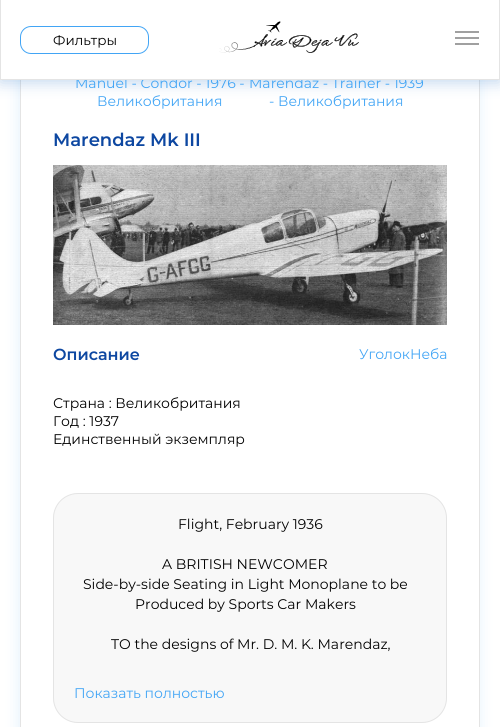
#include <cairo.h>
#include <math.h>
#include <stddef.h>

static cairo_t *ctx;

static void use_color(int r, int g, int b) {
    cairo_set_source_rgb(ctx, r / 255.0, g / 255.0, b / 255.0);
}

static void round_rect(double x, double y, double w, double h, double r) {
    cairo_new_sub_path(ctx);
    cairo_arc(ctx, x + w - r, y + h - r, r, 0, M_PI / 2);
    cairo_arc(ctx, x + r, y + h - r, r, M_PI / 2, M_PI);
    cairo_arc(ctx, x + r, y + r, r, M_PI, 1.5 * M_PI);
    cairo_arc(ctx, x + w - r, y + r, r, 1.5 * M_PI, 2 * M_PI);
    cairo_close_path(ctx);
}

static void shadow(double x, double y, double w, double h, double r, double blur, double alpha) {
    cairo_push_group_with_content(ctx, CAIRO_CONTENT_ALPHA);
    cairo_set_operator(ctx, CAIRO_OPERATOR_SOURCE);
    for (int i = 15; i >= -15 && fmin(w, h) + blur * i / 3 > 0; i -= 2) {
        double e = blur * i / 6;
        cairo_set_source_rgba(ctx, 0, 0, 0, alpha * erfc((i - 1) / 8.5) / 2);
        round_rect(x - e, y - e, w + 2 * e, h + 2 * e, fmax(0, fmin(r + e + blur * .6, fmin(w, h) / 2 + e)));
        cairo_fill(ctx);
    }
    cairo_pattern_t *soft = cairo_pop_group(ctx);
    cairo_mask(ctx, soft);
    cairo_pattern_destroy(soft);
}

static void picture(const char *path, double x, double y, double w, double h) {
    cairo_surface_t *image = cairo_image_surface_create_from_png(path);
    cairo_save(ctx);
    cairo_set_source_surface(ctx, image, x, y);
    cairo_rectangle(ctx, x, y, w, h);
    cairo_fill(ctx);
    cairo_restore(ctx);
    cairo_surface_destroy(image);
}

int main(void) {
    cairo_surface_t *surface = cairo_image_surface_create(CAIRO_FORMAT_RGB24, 500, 727);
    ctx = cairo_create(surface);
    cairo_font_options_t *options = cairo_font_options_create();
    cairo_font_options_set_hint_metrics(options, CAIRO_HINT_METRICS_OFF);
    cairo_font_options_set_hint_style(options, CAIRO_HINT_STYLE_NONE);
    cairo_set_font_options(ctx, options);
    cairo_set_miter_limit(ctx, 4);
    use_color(255, 255, 255);
    cairo_paint(ctx);
    cairo_save(ctx);
    cairo_set_fill_rule(ctx, CAIRO_FILL_RULE_EVEN_ODD);
    cairo_new_path(ctx);
    cairo_move_to(ctx, 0, 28);
    cairo_line_to(ctx, 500, 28);
    cairo_line_to(ctx, 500, 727);
    cairo_line_to(ctx, 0, 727);
    cairo_close_path(ctx);
    cairo_move_to(ctx, 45, 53);
    cairo_line_to(ctx, 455, 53);
    cairo_curve_to(ctx, 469, 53, 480, 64, 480, 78);
    cairo_line_to(ctx, 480, 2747);
    cairo_curve_to(ctx, 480, 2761, 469, 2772, 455, 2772);
    cairo_line_to(ctx, 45, 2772);
    cairo_curve_to(ctx, 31, 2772, 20, 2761, 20, 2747);
    cairo_line_to(ctx, 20, 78);
    cairo_curve_to(ctx, 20, 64, 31, 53, 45, 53);
    cairo_close_path(ctx);
    cairo_clip(ctx);
    use_color(66, 165, 245);
    shadow(19, 52, 460, 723, 25, 7.5, 0.15);
    cairo_restore(ctx);
    cairo_rectangle(ctx, 20.5, 53.5, 459, 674);
    use_color(228, 228, 228);
    cairo_set_line_width(ctx, 1);
    cairo_stroke(ctx);
    use_color(21, 101, 192);
    shadow(0, 3, 500, 80, 0, 7.5, 0.25);
    cairo_select_font_face(ctx, "Montserrat", CAIRO_FONT_SLANT_NORMAL, CAIRO_FONT_WEIGHT_NORMAL);
    cairo_set_font_size(ctx, 14);
    use_color(66, 165, 245);
    cairo_move_to(ctx, 75, 88);
    cairo_show_text(ctx, "Manuel - Condor - 1976 -");
    cairo_move_to(ctx, 249, 88);
    cairo_show_text(ctx, "Marendaz - Trainer - 1939");
    use_color(255, 255, 255);
    cairo_rectangle(ctx, 1, 0, 498, 79);
    cairo_fill(ctx);
    use_color(228, 228, 228);
    cairo_rectangle(ctx, 499, 0, 1, 80);
    cairo_fill(ctx);
    cairo_rectangle(ctx, 0, 79, 500, 1);
    cairo_fill(ctx);
    cairo_rectangle(ctx, 0, 0, 1, 80);
    cairo_fill(ctx);
    round_rect(20.5, 26.5, 128, 27, 10.5);
    use_color(66, 165, 245);
    cairo_stroke(ctx);
    cairo_set_font_size(ctx, 13.5);
    use_color(0, 0, 0);
    cairo_move_to(ctx, 53, 45);
    cairo_show_text(ctx, "Фильтры");
    picture("img1.png", 219, 21, 140, 32);
    cairo_new_path(ctx);
    cairo_move_to(ctx, 455, 32);
    cairo_line_to(ctx, 479, 32);
    cairo_move_to(ctx, 455, 38);
    cairo_line_to(ctx, 479, 38);
    cairo_move_to(ctx, 455, 44);
    cairo_line_to(ctx, 479, 44);
    use_color(65, 65, 65);
    cairo_stroke(ctx);
    cairo_set_font_size(ctx, 14);
    use_color(66, 165, 245);
    cairo_move_to(ctx, 97, 106);
    cairo_show_text(ctx, "Великобритания");
    cairo_move_to(ctx, 269, 106);
    cairo_show_text(ctx, "- Великобритания");
    cairo_select_font_face(ctx, "Montserrat SemiBold", CAIRO_FONT_SLANT_NORMAL, CAIRO_FONT_WEIGHT_NORMAL);
    cairo_set_font_size(ctx, 18);
    use_color(13, 71, 161);
    cairo_move_to(ctx, 53, 146);
    cairo_show_text(ctx, "Marendaz Mk III");
    picture("img2.png", 53, 165, 394, 160);
    cairo_set_font_size(ctx, 16);
    cairo_move_to(ctx, 53, 360);
    cairo_show_text(ctx, "Описание");
    cairo_select_font_face(ctx, "Montserrat", CAIRO_FONT_SLANT_NORMAL, CAIRO_FONT_WEIGHT_NORMAL);
    cairo_set_font_size(ctx, 14);
    use_color(66, 165, 245);
    cairo_move_to(ctx, 359, 359);
    cairo_show_text(ctx, "УголокНеба");
    use_color(0, 0, 0);
    cairo_move_to(ctx, 53, 408);
    cairo_show_text(ctx, "Страна : Великобритания");
    cairo_move_to(ctx, 53, 426);
    cairo_show_text(ctx, "Год : 1937");
    cairo_move_to(ctx, 53, 444);
    cairo_show_text(ctx, "Единственный экземпляр");
    use_color(248, 248, 248);
    round_rect(53.5, 493.5, 393, 229, 24.5);
    cairo_fill_preserve(ctx);
    use_color(228, 228, 228);
    cairo_stroke(ctx);
    use_color(0, 0, 0);
    cairo_move_to(ctx, 178, 529);
    cairo_show_text(ctx, "Flight, February 1936");
    cairo_move_to(ctx, 162, 569);
    cairo_show_text(ctx, "A BRITISH NEWCOMER");
    cairo_move_to(ctx, 83, 589);
    cairo_show_text(ctx, "Side-by-side Seating in Light Monoplane to be");
    cairo_move_to(ctx, 135, 609);
    cairo_show_text(ctx, "Produced by Sports Car Makers");
    cairo_move_to(ctx, 111, 649);
    cairo_show_text(ctx, "TO the designs of Mr. D. M. K. Marendaz,");
    use_color(66, 165, 245);
    cairo_move_to(ctx, 74, 698);
    cairo_show_text(ctx, "Показать полностью");
    cairo_surface_write_to_png(surface, "result.png");
    cairo_font_options_destroy(options);
    cairo_destroy(ctx);
    cairo_surface_destroy(surface);
    return 0;
}
